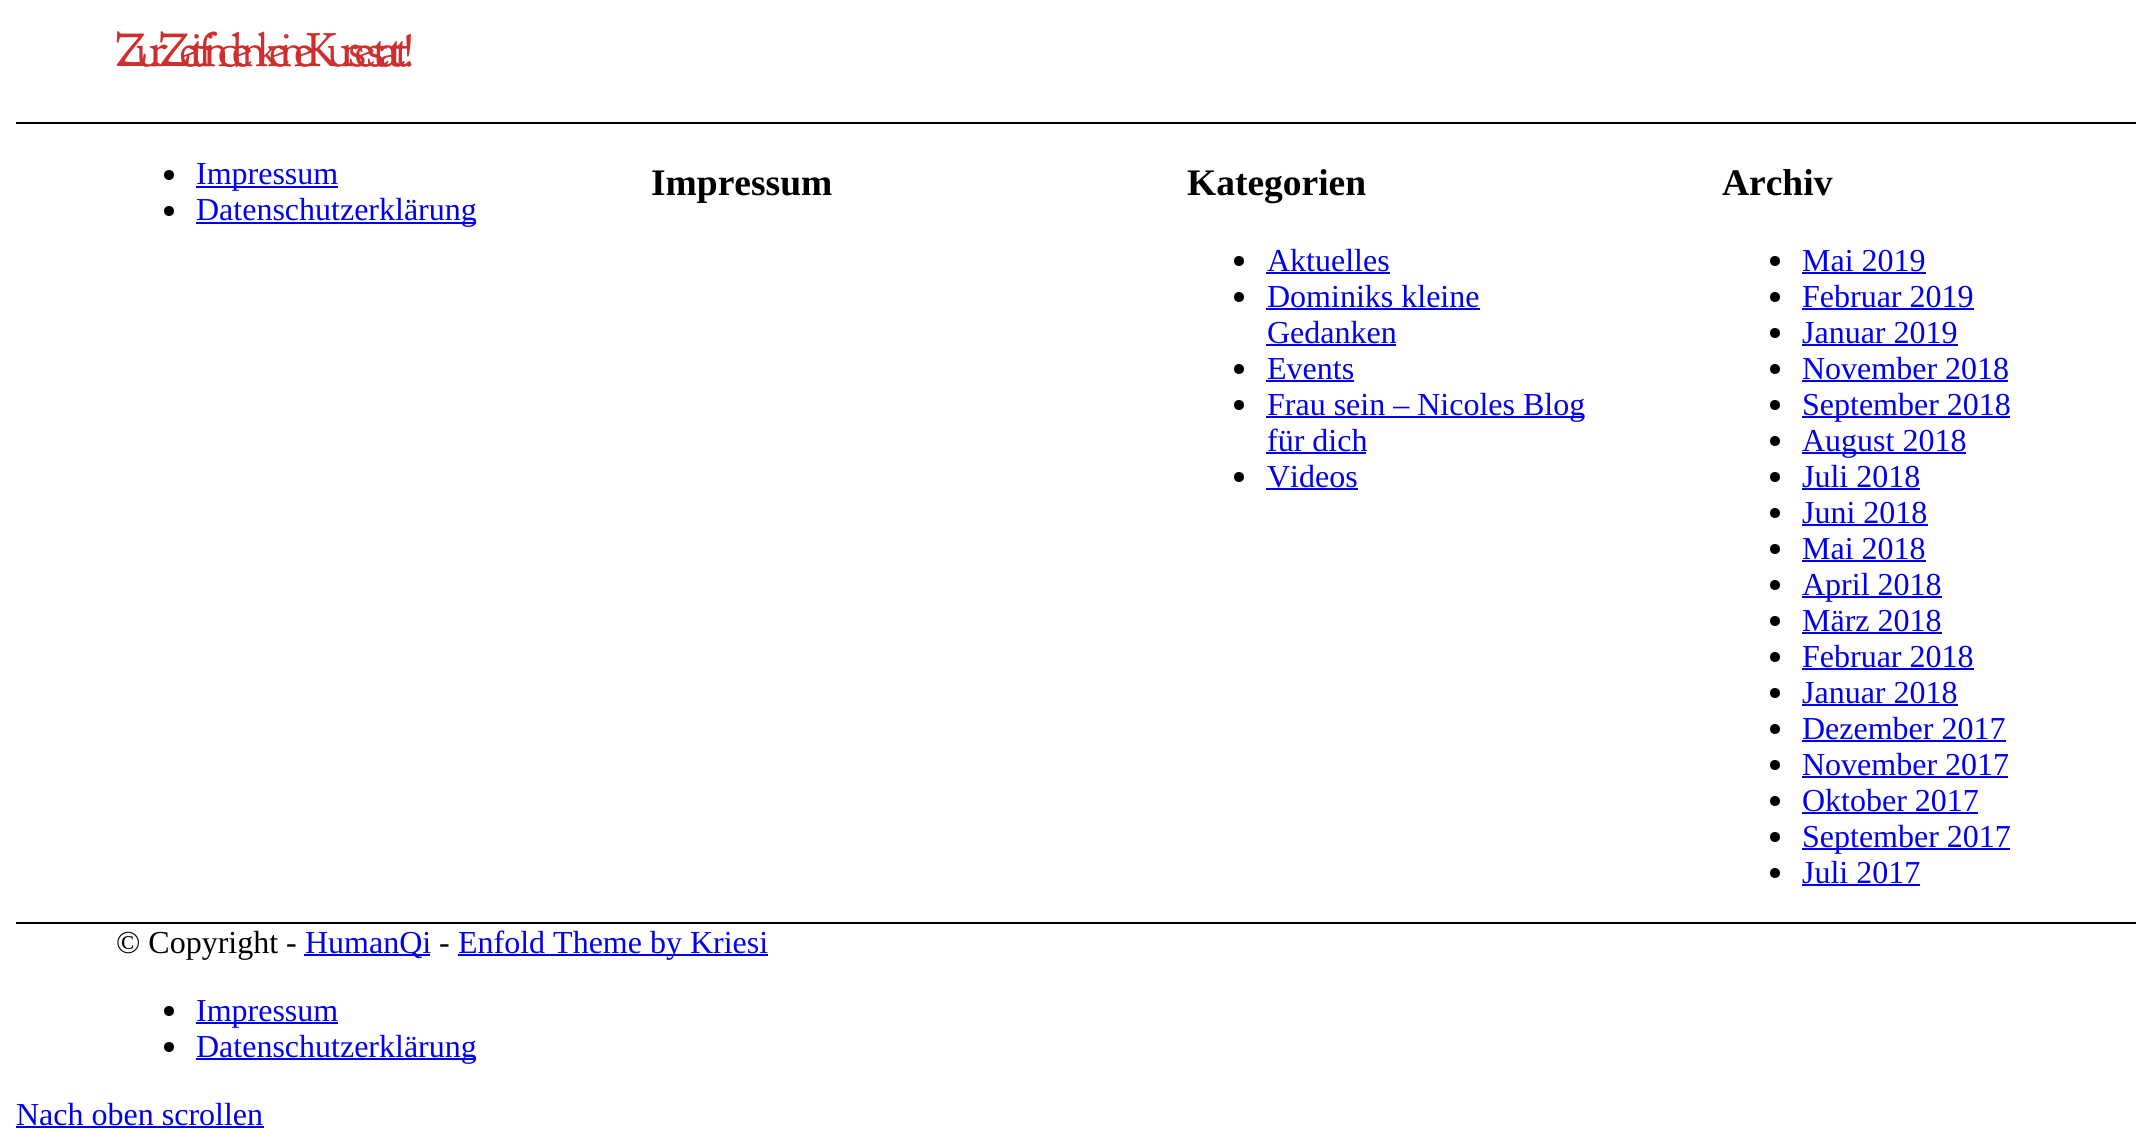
#include <cairo.h>
#include <math.h>
#include <stddef.h>

static cairo_t *ctx;

static void use_color(int r, int g, int b) {
    cairo_set_source_rgb(ctx, r / 255.0, g / 255.0, b / 255.0);
}

static void spaced_text(double x, double y, const char *s, double letter, double word) {
    cairo_move_to(ctx, x, y);
    while (*s) {
        char ch[5] = {0};
        int n = 0;
        do ch[n++] = *s++; while ((*s & 0xC0) == 0x80);
        cairo_show_text(ctx, ch);
        cairo_rel_move_to(ctx, letter + word * (*ch == ' '), 0);
    }
}

int main(void) {
    cairo_surface_t *surface = cairo_image_surface_create(CAIRO_FORMAT_RGB24, 2152, 1147);
    ctx = cairo_create(surface);
    cairo_font_options_t *options = cairo_font_options_create();
    cairo_font_options_set_hint_metrics(options, CAIRO_HINT_METRICS_OFF);
    cairo_font_options_set_hint_style(options, CAIRO_HINT_STYLE_NONE);
    cairo_set_font_options(ctx, options);
    cairo_set_miter_limit(ctx, 4);
    use_color(255, 255, 255);
    cairo_paint(ctx);
    cairo_select_font_face(ctx, "Goudy Bookletter 1911", CAIRO_FONT_SLANT_NORMAL, CAIRO_FONT_WEIGHT_NORMAL);
    cairo_set_font_size(ctx, 48);
    use_color(207, 46, 46);
    spaced_text(116, 66, "Zur Zeit finden keine Kurse statt!", -10, 0);
    use_color(0, 0, 0);
    cairo_rectangle(ctx, 16, 122, 2120, 2);
    cairo_fill(ctx);
    cairo_arc(ctx, 169, 175, 5, 0, 2 * M_PI);
    cairo_fill(ctx);
    use_color(0, 0, 238);
    cairo_rectangle(ctx, 196, 186, 142, 2);
    cairo_fill(ctx);
    cairo_select_font_face(ctx, "Liberation Serif", CAIRO_FONT_SLANT_NORMAL, CAIRO_FONT_WEIGHT_NORMAL);
    cairo_set_font_size(ctx, 32);
    cairo_move_to(ctx, 196, 184);
    cairo_show_text(ctx, "Impressum");
    use_color(0, 0, 0);
    cairo_new_path(ctx);
    cairo_arc(ctx, 169, 211, 5, 0, 2 * M_PI);
    cairo_fill(ctx);
    use_color(0, 0, 238);
    cairo_rectangle(ctx, 196, 222, 280, 2);
    cairo_fill(ctx);
    cairo_move_to(ctx, 196, 220);
    cairo_show_text(ctx, "Datenschutzerklärung");
    cairo_select_font_face(ctx, "Liberation Serif", CAIRO_FONT_SLANT_NORMAL, CAIRO_FONT_WEIGHT_BOLD);
    cairo_set_font_size(ctx, 37.5);
    use_color(0, 0, 0);
    cairo_move_to(ctx, 651, 195);
    cairo_show_text(ctx, "Impressum");
    cairo_move_to(ctx, 1187, 195);
    cairo_show_text(ctx, "Kategorien");
    cairo_new_path(ctx);
    cairo_arc(ctx, 1239, 261, 5, 0, 2 * M_PI);
    cairo_fill(ctx);
    cairo_select_font_face(ctx, "Liberation Serif", CAIRO_FONT_SLANT_NORMAL, CAIRO_FONT_WEIGHT_NORMAL);
    cairo_set_font_size(ctx, 32);
    use_color(0, 0, 238);
    cairo_move_to(ctx, 1267, 271);
    cairo_show_text(ctx, "Aktuelles");
    cairo_rectangle(ctx, 1266, 272, 124, 2);
    cairo_fill(ctx);
    use_color(0, 0, 0);
    cairo_arc(ctx, 1239, 297, 5, 0, 2 * M_PI);
    cairo_fill(ctx);
    use_color(0, 0, 238);
    cairo_move_to(ctx, 1267, 307);
    cairo_show_text(ctx, "Dominiks kleine");
    cairo_rectangle(ctx, 1266, 308, 214, 2);
    cairo_fill(ctx);
    cairo_move_to(ctx, 1267, 343);
    cairo_show_text(ctx, "Gedanken");
    cairo_rectangle(ctx, 1266, 344, 130, 2);
    cairo_fill(ctx);
    use_color(0, 0, 0);
    cairo_arc(ctx, 1239, 369, 5, 0, 2 * M_PI);
    cairo_fill(ctx);
    use_color(0, 0, 238);
    cairo_move_to(ctx, 1267, 379);
    cairo_show_text(ctx, "Events");
    cairo_rectangle(ctx, 1266, 380, 88, 2);
    cairo_fill(ctx);
    use_color(0, 0, 0);
    cairo_arc(ctx, 1239, 405, 5, 0, 2 * M_PI);
    cairo_fill(ctx);
    use_color(0, 0, 238);
    cairo_rectangle(ctx, 1266, 416, 318, 2);
    cairo_fill(ctx);
    cairo_move_to(ctx, 1267, 415);
    cairo_show_text(ctx, "Frau sein – Nicoles Blog");
    cairo_move_to(ctx, 1267, 451);
    cairo_show_text(ctx, "für dich");
    cairo_rectangle(ctx, 1266, 452, 100, 2);
    cairo_fill(ctx);
    use_color(0, 0, 0);
    cairo_arc(ctx, 1239, 477, 5, 0, 2 * M_PI);
    cairo_fill(ctx);
    use_color(0, 0, 238);
    cairo_move_to(ctx, 1267, 487);
    cairo_show_text(ctx, "Videos");
    cairo_rectangle(ctx, 1266, 488, 92, 2);
    cairo_fill(ctx);
    cairo_select_font_face(ctx, "Liberation Serif", CAIRO_FONT_SLANT_NORMAL, CAIRO_FONT_WEIGHT_BOLD);
    cairo_set_font_size(ctx, 37.5);
    use_color(0, 0, 0);
    cairo_move_to(ctx, 1722, 195);
    cairo_show_text(ctx, "Archiv");
    cairo_new_path(ctx);
    cairo_arc(ctx, 1775, 261, 5, 0, 2 * M_PI);
    cairo_fill(ctx);
    cairo_select_font_face(ctx, "Liberation Serif", CAIRO_FONT_SLANT_NORMAL, CAIRO_FONT_WEIGHT_NORMAL);
    cairo_set_font_size(ctx, 32);
    use_color(0, 0, 238);
    cairo_move_to(ctx, 1802, 271);
    cairo_show_text(ctx, "Mai 2019");
    cairo_rectangle(ctx, 1802, 272, 124, 2);
    cairo_fill(ctx);
    use_color(0, 0, 0);
    cairo_arc(ctx, 1775, 297, 5, 0, 2 * M_PI);
    cairo_fill(ctx);
    use_color(0, 0, 238);
    cairo_move_to(ctx, 1802, 307);
    cairo_show_text(ctx, "Februar 2019");
    cairo_rectangle(ctx, 1802, 308, 172, 2);
    cairo_fill(ctx);
    use_color(0, 0, 0);
    cairo_arc(ctx, 1775, 333, 5, 0, 2 * M_PI);
    cairo_fill(ctx);
    use_color(0, 0, 238);
    cairo_move_to(ctx, 1802, 343);
    cairo_show_text(ctx, "Januar 2019");
    cairo_rectangle(ctx, 1802, 344, 156, 2);
    cairo_fill(ctx);
    use_color(0, 0, 0);
    cairo_arc(ctx, 1775, 369, 5, 0, 2 * M_PI);
    cairo_fill(ctx);
    use_color(0, 0, 238);
    cairo_move_to(ctx, 1802, 379);
    cairo_show_text(ctx, "November 2018");
    cairo_rectangle(ctx, 1802, 380, 206, 2);
    cairo_fill(ctx);
    use_color(0, 0, 0);
    cairo_arc(ctx, 1775, 405, 5, 0, 2 * M_PI);
    cairo_fill(ctx);
    use_color(0, 0, 238);
    cairo_rectangle(ctx, 1802, 416, 208, 2);
    cairo_fill(ctx);
    cairo_move_to(ctx, 1802, 415);
    cairo_show_text(ctx, "September 2018");
    use_color(0, 0, 0);
    cairo_new_path(ctx);
    cairo_arc(ctx, 1775, 441, 5, 0, 2 * M_PI);
    cairo_fill(ctx);
    use_color(0, 0, 238);
    cairo_rectangle(ctx, 1802, 452, 164, 2);
    cairo_fill(ctx);
    cairo_move_to(ctx, 1802, 451);
    cairo_show_text(ctx, "August 2018");
    use_color(0, 0, 0);
    cairo_new_path(ctx);
    cairo_arc(ctx, 1775, 477, 5, 0, 2 * M_PI);
    cairo_fill(ctx);
    use_color(0, 0, 238);
    cairo_move_to(ctx, 1802, 487);
    cairo_show_text(ctx, "Juli 2018");
    cairo_rectangle(ctx, 1802, 488, 118, 2);
    cairo_fill(ctx);
    use_color(0, 0, 0);
    cairo_arc(ctx, 1775, 513, 5, 0, 2 * M_PI);
    cairo_fill(ctx);
    use_color(0, 0, 238);
    cairo_move_to(ctx, 1802, 523);
    cairo_show_text(ctx, "Juni 2018");
    cairo_rectangle(ctx, 1802, 524, 126, 2);
    cairo_fill(ctx);
    use_color(0, 0, 0);
    cairo_arc(ctx, 1775, 549, 5, 0, 2 * M_PI);
    cairo_fill(ctx);
    use_color(0, 0, 238);
    cairo_move_to(ctx, 1802, 559);
    cairo_show_text(ctx, "Mai 2018");
    cairo_rectangle(ctx, 1802, 560, 124, 2);
    cairo_fill(ctx);
    use_color(0, 0, 0);
    cairo_arc(ctx, 1775, 585, 5, 0, 2 * M_PI);
    cairo_fill(ctx);
    use_color(0, 0, 238);
    cairo_rectangle(ctx, 1802, 596, 140, 2);
    cairo_fill(ctx);
    cairo_move_to(ctx, 1802, 595);
    cairo_show_text(ctx, "April 2018");
    use_color(0, 0, 0);
    cairo_new_path(ctx);
    cairo_arc(ctx, 1775, 621, 5, 0, 2 * M_PI);
    cairo_fill(ctx);
    use_color(0, 0, 238);
    cairo_move_to(ctx, 1802, 631);
    cairo_show_text(ctx, "März 2018");
    cairo_rectangle(ctx, 1802, 632, 140, 2);
    cairo_fill(ctx);
    use_color(0, 0, 0);
    cairo_arc(ctx, 1775, 657, 5, 0, 2 * M_PI);
    cairo_fill(ctx);
    use_color(0, 0, 238);
    cairo_move_to(ctx, 1802, 667);
    cairo_show_text(ctx, "Februar 2018");
    cairo_rectangle(ctx, 1802, 668, 172, 2);
    cairo_fill(ctx);
    use_color(0, 0, 0);
    cairo_arc(ctx, 1775, 693, 5, 0, 2 * M_PI);
    cairo_fill(ctx);
    use_color(0, 0, 238);
    cairo_move_to(ctx, 1802, 703);
    cairo_show_text(ctx, "Januar 2018");
    cairo_rectangle(ctx, 1802, 704, 156, 2);
    cairo_fill(ctx);
    use_color(0, 0, 0);
    cairo_arc(ctx, 1775, 729, 5, 0, 2 * M_PI);
    cairo_fill(ctx);
    use_color(0, 0, 238);
    cairo_move_to(ctx, 1802, 739);
    cairo_show_text(ctx, "Dezember 2017");
    cairo_rectangle(ctx, 1802, 740, 204, 2);
    cairo_fill(ctx);
    use_color(0, 0, 0);
    cairo_arc(ctx, 1775, 765, 5, 0, 2 * M_PI);
    cairo_fill(ctx);
    use_color(0, 0, 238);
    cairo_move_to(ctx, 1802, 775);
    cairo_show_text(ctx, "November 2017");
    cairo_rectangle(ctx, 1802, 776, 206, 2);
    cairo_fill(ctx);
    use_color(0, 0, 0);
    cairo_arc(ctx, 1775, 801, 5, 0, 2 * M_PI);
    cairo_fill(ctx);
    use_color(0, 0, 238);
    cairo_move_to(ctx, 1802, 811);
    cairo_show_text(ctx, "Oktober 2017");
    cairo_rectangle(ctx, 1802, 812, 176, 2);
    cairo_fill(ctx);
    use_color(0, 0, 0);
    cairo_arc(ctx, 1775, 837, 5, 0, 2 * M_PI);
    cairo_fill(ctx);
    use_color(0, 0, 238);
    cairo_rectangle(ctx, 1802, 848, 208, 2);
    cairo_fill(ctx);
    cairo_move_to(ctx, 1802, 847);
    cairo_show_text(ctx, "September 2017");
    use_color(0, 0, 0);
    cairo_new_path(ctx);
    cairo_arc(ctx, 1775, 873, 5, 0, 2 * M_PI);
    cairo_fill(ctx);
    use_color(0, 0, 238);
    cairo_move_to(ctx, 1802, 883);
    cairo_show_text(ctx, "Juli 2017");
    cairo_rectangle(ctx, 1802, 884, 118, 2);
    cairo_fill(ctx);
    use_color(0, 0, 0);
    cairo_rectangle(ctx, 16, 922, 2120, 2);
    cairo_fill(ctx);
    cairo_move_to(ctx, 116, 953);
    cairo_show_text(ctx, "© Copyright -");
    use_color(0, 0, 238);
    cairo_rectangle(ctx, 304, 954, 126, 2);
    cairo_fill(ctx);
    cairo_move_to(ctx, 305, 953);
    cairo_show_text(ctx, "HumanQi");
    use_color(0, 0, 0);
    cairo_move_to(ctx, 439, 953);
    cairo_show_text(ctx, "-");
    use_color(0, 0, 238);
    cairo_rectangle(ctx, 458, 954, 310, 2);
    cairo_fill(ctx);
    cairo_move_to(ctx, 458, 953);
    cairo_show_text(ctx, "Enfold Theme by Kriesi");
    use_color(0, 0, 0);
    cairo_new_path(ctx);
    cairo_arc(ctx, 169, 1011, 5, 0, 2 * M_PI);
    cairo_fill(ctx);
    use_color(0, 0, 238);
    cairo_rectangle(ctx, 196, 1022, 142, 2);
    cairo_fill(ctx);
    cairo_move_to(ctx, 196, 1021);
    cairo_show_text(ctx, "Impressum");
    use_color(0, 0, 0);
    cairo_new_path(ctx);
    cairo_arc(ctx, 169, 1047, 5, 0, 2 * M_PI);
    cairo_fill(ctx);
    use_color(0, 0, 238);
    cairo_rectangle(ctx, 196, 1058, 280, 2);
    cairo_fill(ctx);
    cairo_move_to(ctx, 196, 1057);
    cairo_show_text(ctx, "Datenschutzerklärung");
    cairo_move_to(ctx, 16, 1125);
    cairo_show_text(ctx, "Nach oben scrollen");
    cairo_rectangle(ctx, 16, 1126, 248, 2);
    cairo_fill(ctx);
    cairo_surface_write_to_png(surface, "result.png");
    cairo_font_options_destroy(options);
    cairo_destroy(ctx);
    cairo_surface_destroy(surface);
    return 0;
}
